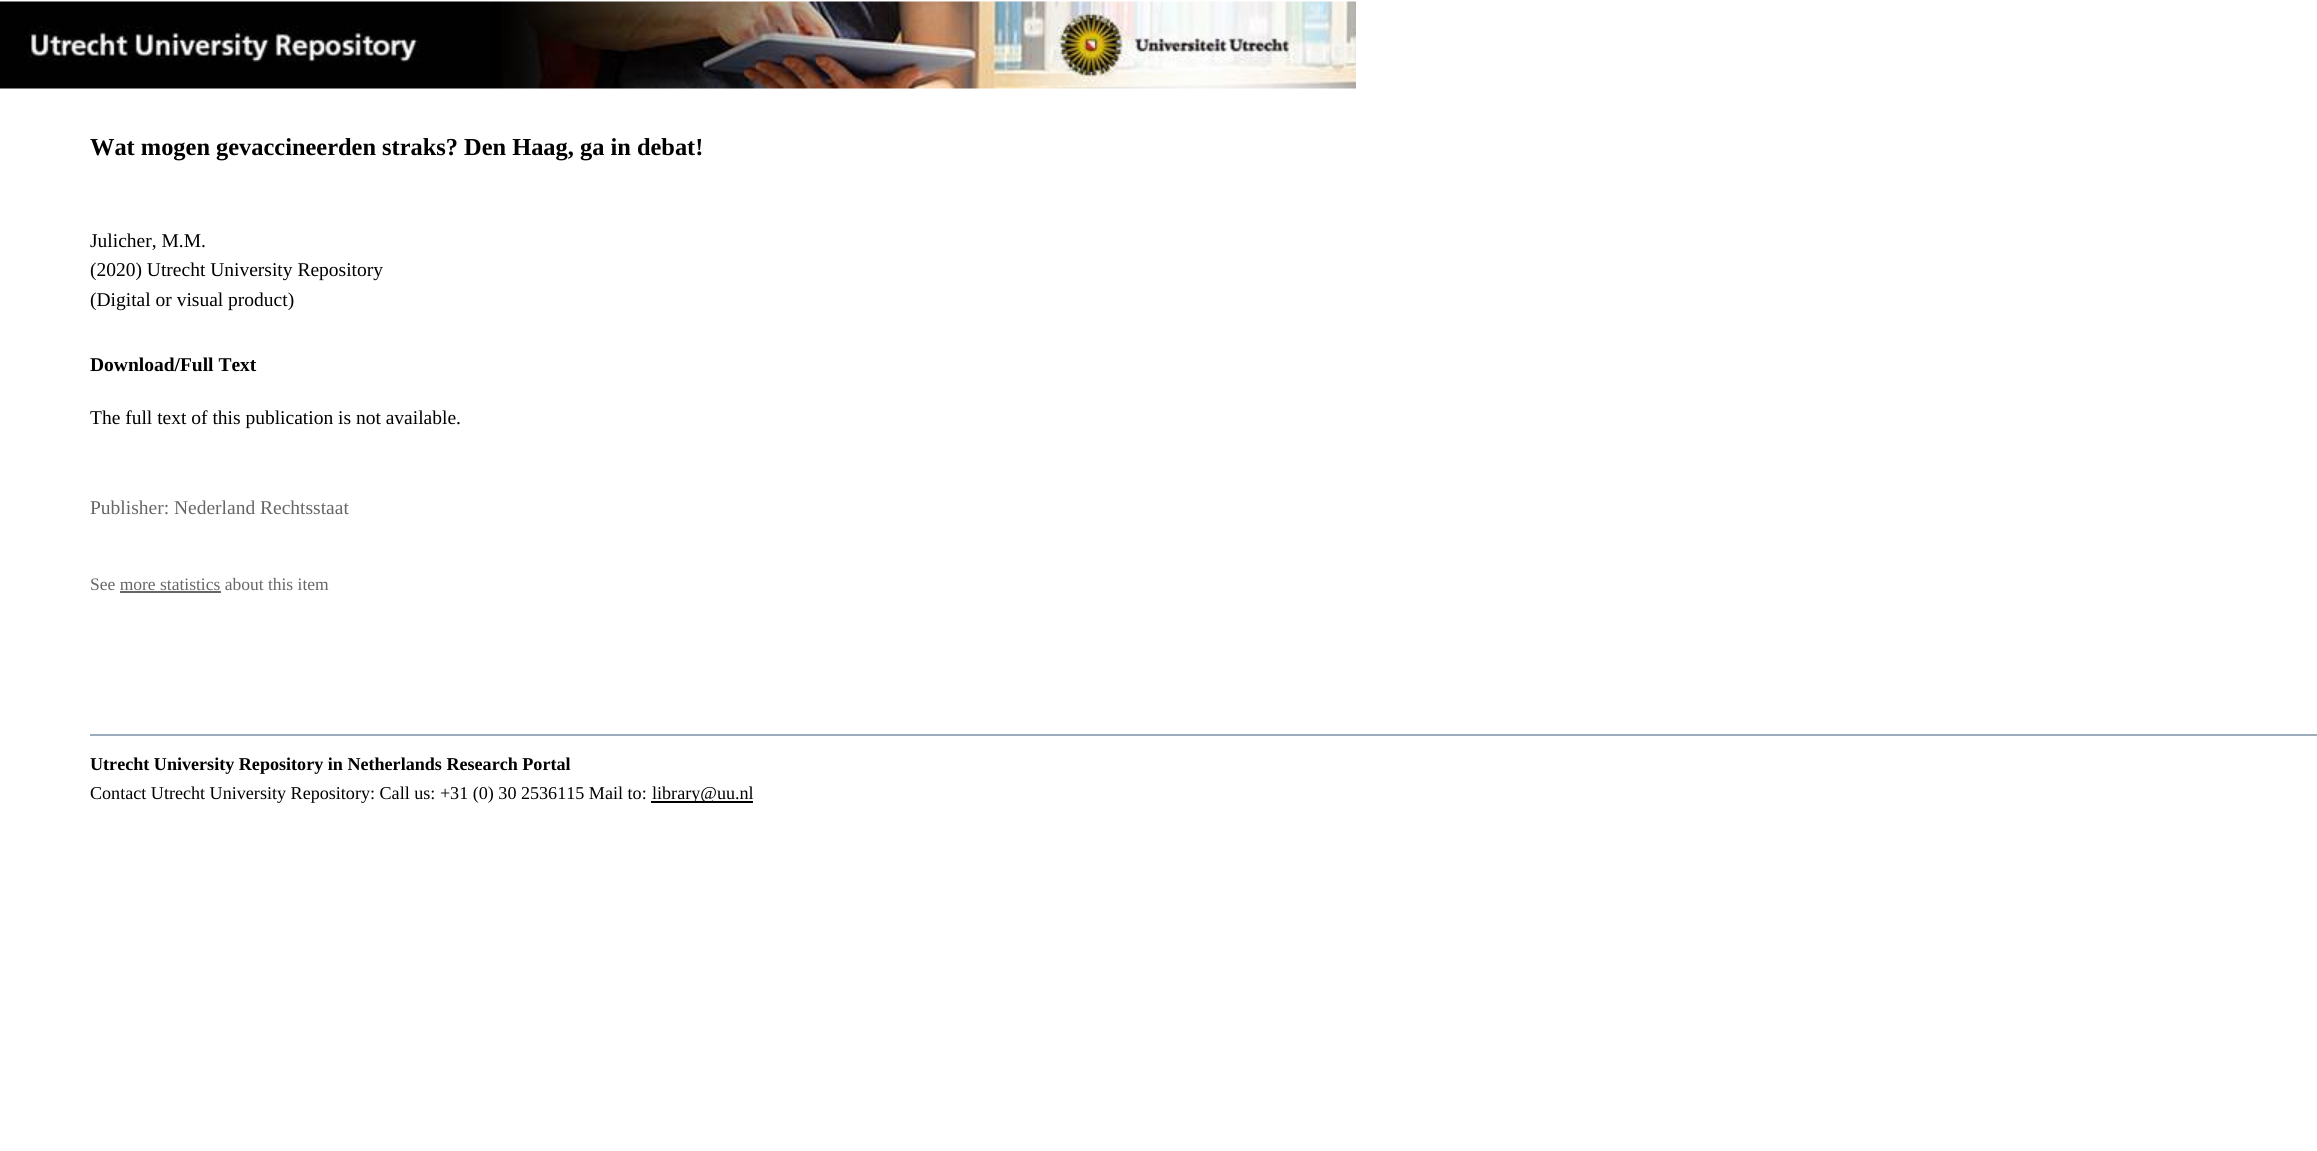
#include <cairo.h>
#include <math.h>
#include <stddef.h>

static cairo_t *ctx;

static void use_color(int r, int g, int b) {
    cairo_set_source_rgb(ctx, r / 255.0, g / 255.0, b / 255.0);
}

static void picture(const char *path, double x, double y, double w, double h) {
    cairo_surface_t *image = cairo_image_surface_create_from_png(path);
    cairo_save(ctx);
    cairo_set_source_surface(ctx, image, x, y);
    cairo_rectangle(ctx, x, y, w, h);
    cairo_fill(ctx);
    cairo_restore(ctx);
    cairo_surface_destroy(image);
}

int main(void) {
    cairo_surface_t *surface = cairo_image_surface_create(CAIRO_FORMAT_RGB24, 2317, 1151);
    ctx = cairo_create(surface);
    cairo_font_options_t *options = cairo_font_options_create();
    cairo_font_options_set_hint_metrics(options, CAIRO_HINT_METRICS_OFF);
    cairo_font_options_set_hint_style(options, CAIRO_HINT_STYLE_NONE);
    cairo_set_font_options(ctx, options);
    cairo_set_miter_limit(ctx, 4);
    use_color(255, 255, 255);
    cairo_paint(ctx);
    picture("img1.png", 0, 1, 1356, 88);
    cairo_select_font_face(ctx, "Liberation Serif", CAIRO_FONT_SLANT_NORMAL, CAIRO_FONT_WEIGHT_BOLD);
    cairo_set_font_size(ctx, 24.4);
    use_color(0, 0, 0);
    cairo_move_to(ctx, 90, 155);
    cairo_show_text(ctx, "Wat mogen gevaccineerden straks? Den Haag, ga in debat!");
    cairo_select_font_face(ctx, "Liberation Serif", CAIRO_FONT_SLANT_NORMAL, CAIRO_FONT_WEIGHT_NORMAL);
    cairo_set_font_size(ctx, 19.5);
    cairo_move_to(ctx, 90, 247);
    cairo_show_text(ctx, "Julicher, M.M.");
    cairo_move_to(ctx, 90, 276);
    cairo_show_text(ctx, "(2020) Utrecht University Repository");
    cairo_move_to(ctx, 90, 306);
    cairo_show_text(ctx, "(Digital or visual product)");
    cairo_select_font_face(ctx, "Liberation Serif", CAIRO_FONT_SLANT_NORMAL, CAIRO_FONT_WEIGHT_BOLD);
    cairo_move_to(ctx, 90, 371);
    cairo_show_text(ctx, "Download/Full Text");
    cairo_select_font_face(ctx, "Liberation Serif", CAIRO_FONT_SLANT_NORMAL, CAIRO_FONT_WEIGHT_NORMAL);
    cairo_move_to(ctx, 90, 424);
    cairo_show_text(ctx, "The full text of this publication is not available.");
    use_color(102, 102, 102);
    cairo_move_to(ctx, 90, 514);
    cairo_show_text(ctx, "Publisher: Nederland Rechtsstaat");
    cairo_set_font_size(ctx, 17.5);
    cairo_move_to(ctx, 90, 590);
    cairo_show_text(ctx, "See more statistics about this item");
    cairo_rectangle(ctx, 120, 591, 101, 2);
    cairo_fill(ctx);
    use_color(156, 172, 186);
    cairo_rectangle(ctx, 90, 734, 2227, 2);
    cairo_fill(ctx);
    cairo_select_font_face(ctx, "Liberation Serif", CAIRO_FONT_SLANT_NORMAL, CAIRO_FONT_WEIGHT_BOLD);
    cairo_set_font_size(ctx, 18.1);
    use_color(0, 0, 0);
    cairo_move_to(ctx, 90, 770);
    cairo_show_text(ctx, "Utrecht University Repository in Netherlands Research Portal");
    cairo_select_font_face(ctx, "Liberation Serif", CAIRO_FONT_SLANT_NORMAL, CAIRO_FONT_WEIGHT_NORMAL);
    cairo_move_to(ctx, 90, 799);
    cairo_show_text(ctx, "Contact Utrecht University Repository: Call us: +31 (0) 30 2536115 Mail to:");
    cairo_rectangle(ctx, 651, 801, 102, 2);
    cairo_fill(ctx);
    cairo_move_to(ctx, 652, 799);
    cairo_show_text(ctx, "library@uu.nl");
    cairo_surface_write_to_png(surface, "result.png");
    cairo_font_options_destroy(options);
    cairo_destroy(ctx);
    cairo_surface_destroy(surface);
    return 0;
}
